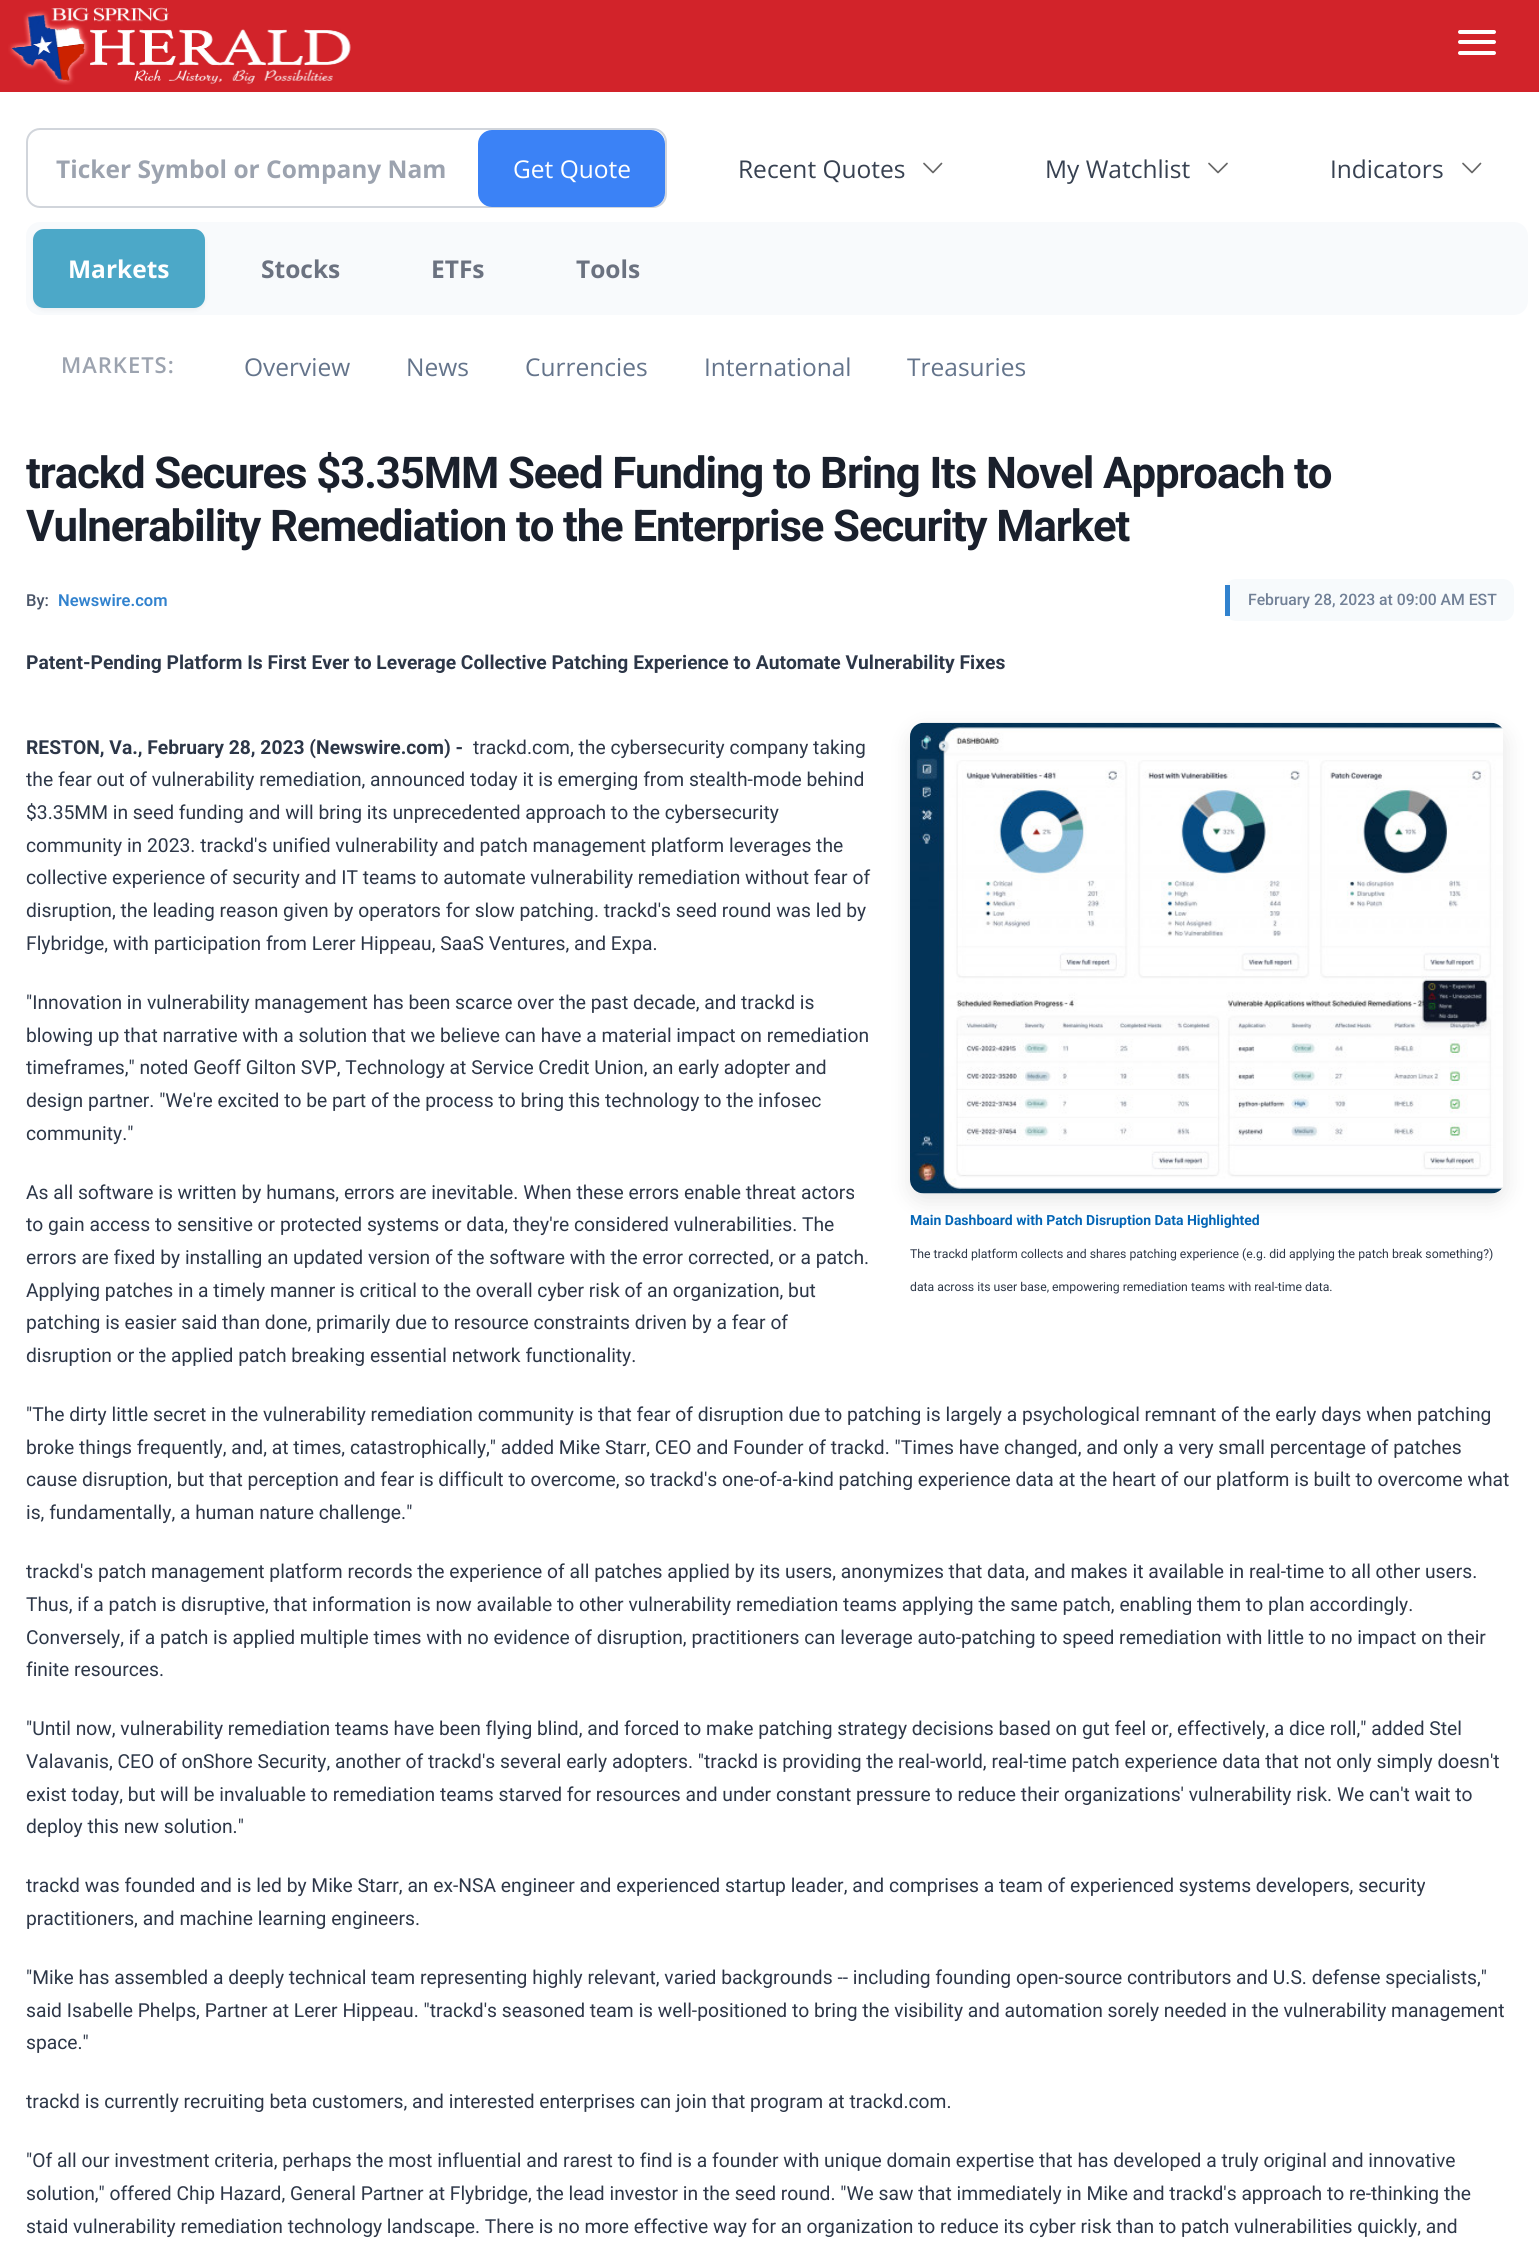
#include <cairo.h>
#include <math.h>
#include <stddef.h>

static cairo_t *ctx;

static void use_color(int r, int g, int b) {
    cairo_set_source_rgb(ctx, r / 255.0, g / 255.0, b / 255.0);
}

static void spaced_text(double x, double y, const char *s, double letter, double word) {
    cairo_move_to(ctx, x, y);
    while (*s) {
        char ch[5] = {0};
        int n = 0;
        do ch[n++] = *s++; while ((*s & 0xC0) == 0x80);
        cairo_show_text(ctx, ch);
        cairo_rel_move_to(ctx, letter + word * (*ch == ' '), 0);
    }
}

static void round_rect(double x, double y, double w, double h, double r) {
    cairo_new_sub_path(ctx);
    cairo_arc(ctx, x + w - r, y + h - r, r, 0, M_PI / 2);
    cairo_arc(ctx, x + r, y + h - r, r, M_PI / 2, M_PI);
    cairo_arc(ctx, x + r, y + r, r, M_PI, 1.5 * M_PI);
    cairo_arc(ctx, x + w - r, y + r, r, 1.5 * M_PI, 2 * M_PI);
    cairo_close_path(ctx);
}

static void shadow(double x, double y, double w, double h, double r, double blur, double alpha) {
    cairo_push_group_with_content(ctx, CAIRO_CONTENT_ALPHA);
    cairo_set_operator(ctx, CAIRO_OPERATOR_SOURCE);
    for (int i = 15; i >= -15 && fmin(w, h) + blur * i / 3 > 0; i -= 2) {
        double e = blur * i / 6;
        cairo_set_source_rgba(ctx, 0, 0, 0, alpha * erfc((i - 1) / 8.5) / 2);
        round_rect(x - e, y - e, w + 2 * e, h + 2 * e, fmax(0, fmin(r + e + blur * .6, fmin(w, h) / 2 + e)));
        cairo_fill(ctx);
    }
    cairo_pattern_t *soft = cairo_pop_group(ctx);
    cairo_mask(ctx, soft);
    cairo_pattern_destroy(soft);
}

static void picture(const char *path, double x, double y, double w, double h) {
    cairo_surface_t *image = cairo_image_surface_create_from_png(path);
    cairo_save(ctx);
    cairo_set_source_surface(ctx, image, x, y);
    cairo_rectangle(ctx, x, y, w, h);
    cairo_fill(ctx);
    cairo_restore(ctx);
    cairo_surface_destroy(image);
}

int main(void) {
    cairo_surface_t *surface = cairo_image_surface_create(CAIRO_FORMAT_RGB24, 1539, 2251);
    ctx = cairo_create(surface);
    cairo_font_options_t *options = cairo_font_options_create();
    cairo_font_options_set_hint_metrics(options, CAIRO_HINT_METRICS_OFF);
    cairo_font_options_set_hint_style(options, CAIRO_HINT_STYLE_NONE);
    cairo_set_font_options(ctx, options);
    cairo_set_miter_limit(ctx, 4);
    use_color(255, 255, 255);
    cairo_paint(ctx);
    use_color(210, 35, 42);
    cairo_rectangle(ctx, 0, 0, 1539, 92);
    cairo_fill(ctx);
    picture("img1.png", 8, 7, 343, 78);
    use_color(255, 255, 255);
    round_rect(1458, 30, 38, 4, 2);
    cairo_fill(ctx);
    round_rect(1458, 40, 38, 4, 2);
    cairo_fill(ctx);
    round_rect(1458, 51, 38, 4, 2);
    cairo_fill(ctx);
    round_rect(27, 129, 639, 78, 13);
    use_color(209, 213, 219);
    cairo_stroke(ctx);
    cairo_select_font_face(ctx, "Open Sans", CAIRO_FONT_SLANT_NORMAL, CAIRO_FONT_WEIGHT_BOLD);
    cairo_set_font_size(ctx, 24.5);
    use_color(156, 163, 175);
    cairo_move_to(ctx, 56, 178);
    cairo_show_text(ctx, "Ticker Symbol or Company Nam");
    use_color(59, 130, 246);
    round_rect(478, 130, 187, 77, 14);
    cairo_fill(ctx);
    cairo_select_font_face(ctx, "Open Sans", CAIRO_FONT_SLANT_NORMAL, CAIRO_FONT_WEIGHT_NORMAL);
    use_color(255, 255, 255);
    cairo_move_to(ctx, 513, 178);
    cairo_show_text(ctx, "Get Quote");
    use_color(55, 65, 81);
    cairo_move_to(ctx, 738, 178);
    cairo_show_text(ctx, "Recent Quotes");
    cairo_new_path(ctx);
    cairo_move_to(ctx, 941.5, 163.5);
    cairo_line_to(ctx, 933, 172.5);
    cairo_line_to(ctx, 924, 163.5);
    use_color(102, 102, 102);
    cairo_set_line_width(ctx, 1.7);
    cairo_set_line_cap(ctx, CAIRO_LINE_CAP_ROUND);
    cairo_set_line_join(ctx, CAIRO_LINE_JOIN_ROUND);
    cairo_stroke(ctx);
    use_color(55, 65, 81);
    cairo_move_to(ctx, 1045, 178);
    cairo_show_text(ctx, "My Watchlist");
    cairo_new_path(ctx);
    cairo_move_to(ctx, 1227, 163.5);
    cairo_line_to(ctx, 1218, 172.5);
    cairo_line_to(ctx, 1209, 163.5);
    use_color(102, 102, 102);
    cairo_stroke(ctx);
    use_color(55, 65, 81);
    cairo_move_to(ctx, 1330, 178);
    cairo_show_text(ctx, "Indicators");
    cairo_new_path(ctx);
    cairo_move_to(ctx, 1480.5, 163.5);
    cairo_line_to(ctx, 1472, 172.5);
    cairo_line_to(ctx, 1463, 163.5);
    use_color(102, 102, 102);
    cairo_stroke(ctx);
    use_color(248, 250, 252);
    round_rect(26, 222, 1502, 93, 14);
    cairo_fill(ctx);
    use_color(0, 0, 0);
    shadow(33, 231, 172, 79, 11, 2, 0.05);
    use_color(76, 168, 200);
    round_rect(33, 229, 172, 79, 11);
    cairo_fill(ctx);
    cairo_select_font_face(ctx, "Open Sans", CAIRO_FONT_SLANT_NORMAL, CAIRO_FONT_WEIGHT_BOLD);
    use_color(255, 255, 255);
    cairo_move_to(ctx, 68, 278);
    cairo_show_text(ctx, "Markets");
    use_color(107, 114, 128);
    cairo_move_to(ctx, 261, 278);
    cairo_show_text(ctx, "Stocks");
    cairo_move_to(ctx, 431, 278);
    cairo_show_text(ctx, "ETFs");
    cairo_move_to(ctx, 576, 278);
    cairo_show_text(ctx, "Tools");
    cairo_select_font_face(ctx, "Open Sans SemiBold", CAIRO_FONT_SLANT_NORMAL, CAIRO_FONT_WEIGHT_NORMAL);
    cairo_set_font_size(ctx, 22);
    use_color(156, 163, 175);
    spaced_text(61, 373, "MARKETS:", 1, 0);
    cairo_select_font_face(ctx, "Open Sans", CAIRO_FONT_SLANT_NORMAL, CAIRO_FONT_WEIGHT_NORMAL);
    cairo_set_font_size(ctx, 24.5);
    use_color(100, 116, 139);
    cairo_move_to(ctx, 244, 376);
    cairo_show_text(ctx, "Overview");
    cairo_move_to(ctx, 406, 376);
    cairo_show_text(ctx, "News");
    cairo_move_to(ctx, 525, 376);
    cairo_show_text(ctx, "Currencies");
    cairo_move_to(ctx, 704, 376);
    cairo_show_text(ctx, "International");
    cairo_move_to(ctx, 907, 376);
    cairo_show_text(ctx, "Treasuries");
    cairo_select_font_face(ctx, "Roboto", CAIRO_FONT_SLANT_NORMAL, CAIRO_FONT_WEIGHT_BOLD);
    cairo_set_font_size(ctx, 43.75);
    use_color(26, 32, 44);
    spaced_text(26, 488, "trackd Secures $3.35MM Seed Funding to Bring Its Novel Approach to", -1.1, 0);
    spaced_text(26, 541, "Vulnerability Remediation to the Enterprise Security Market", -1.1, 0);
    cairo_select_font_face(ctx, "Roboto Medium", CAIRO_FONT_SLANT_NORMAL, CAIRO_FONT_WEIGHT_NORMAL);
    cairo_set_font_size(ctx, 16.5);
    use_color(74, 85, 104);
    cairo_move_to(ctx, 26, 606);
    cairo_show_text(ctx, "By:");
    cairo_select_font_face(ctx, "Roboto SemiBold", CAIRO_FONT_SLANT_NORMAL, CAIRO_FONT_WEIGHT_NORMAL);
    use_color(49, 130, 206);
    cairo_move_to(ctx, 58, 606);
    cairo_show_text(ctx, "Newswire.com");
    use_color(247, 250, 252);
    round_rect(1225, 579, 289, 42, 11);
    cairo_fill(ctx);
    use_color(49, 130, 206);
    cairo_rectangle(ctx, 1225, 585, 5, 31);
    cairo_fill(ctx);
    cairo_select_font_face(ctx, "Roboto Medium", CAIRO_FONT_SLANT_NORMAL, CAIRO_FONT_WEIGHT_NORMAL);
    cairo_set_font_size(ctx, 15.75);
    use_color(113, 128, 150);
    cairo_move_to(ctx, 1248, 605);
    cairo_show_text(ctx, "February 28, 2023 at 09:00 AM EST");
    cairo_select_font_face(ctx, "Roboto", CAIRO_FONT_SLANT_NORMAL, CAIRO_FONT_WEIGHT_BOLD);
    cairo_set_font_size(ctx, 19.25);
    use_color(45, 55, 72);
    cairo_move_to(ctx, 26, 669);
    cairo_show_text(ctx, "Patent-Pending Platform Is First Ever to Leverage Collective Patching Experience to Automate Vulnerability Fixes");
    cairo_move_to(ctx, 26, 754);
    cairo_show_text(ctx, "RESTON, Va., February 28, 2023 (Newswire.com) -");
    cairo_select_font_face(ctx, "Roboto", CAIRO_FONT_SLANT_NORMAL, CAIRO_FONT_WEIGHT_NORMAL);
    cairo_move_to(ctx, 473, 754);
    cairo_show_text(ctx, "trackd.com, the cybersecurity company taking");
    cairo_move_to(ctx, 26, 786);
    cairo_show_text(ctx, "the fear out of vulnerability remediation, announced today it is emerging from stealth-mode behind");
    cairo_move_to(ctx, 26, 819);
    cairo_show_text(ctx, "$3.35MM in seed funding and will bring its unprecedented approach to the cybersecurity");
    cairo_move_to(ctx, 26, 852);
    cairo_show_text(ctx, "community in 2023. trackd's unified vulnerability and patch management platform leverages the");
    cairo_move_to(ctx, 26, 884);
    cairo_show_text(ctx, "collective experience of security and IT teams to automate vulnerability remediation without fear of");
    cairo_move_to(ctx, 26, 917);
    cairo_show_text(ctx, "disruption, the leading reason given by operators for slow patching. trackd's seed round was led by");
    cairo_move_to(ctx, 26, 950);
    cairo_show_text(ctx, "Flybridge, with participation from Lerer Hippeau, SaaS Ventures, and Expa.");
    cairo_move_to(ctx, 26, 1009);
    cairo_show_text(ctx, "\"Innovation in vulnerability management has been scarce over the past decade, and trackd is");
    cairo_move_to(ctx, 26, 1042);
    cairo_show_text(ctx, "blowing up that narrative with a solution that we believe can have a material impact on remediation");
    cairo_move_to(ctx, 26, 1074);
    cairo_show_text(ctx, "timeframes,\" noted Geoff Gilton SVP, Technology at Service Credit Union, an early adopter and");
    cairo_move_to(ctx, 26, 1107);
    cairo_show_text(ctx, "design partner. \"We're excited to be part of the process to bring this technology to the infosec");
    cairo_move_to(ctx, 26, 1140);
    cairo_show_text(ctx, "community.\"");
    cairo_move_to(ctx, 26, 1199);
    cairo_show_text(ctx, "As all software is written by humans, errors are inevitable. When these errors enable threat actors");
    cairo_move_to(ctx, 26, 1231);
    cairo_show_text(ctx, "to gain access to sensitive or protected systems or data, they're considered vulnerabilities. The");
    cairo_move_to(ctx, 26, 1264);
    cairo_show_text(ctx, "errors are fixed by installing an updated version of the software with the error corrected, or a patch.");
    cairo_move_to(ctx, 26, 1297);
    cairo_show_text(ctx, "Applying patches in a timely manner is critical to the overall cyber risk of an organization, but");
    cairo_move_to(ctx, 26, 1329);
    cairo_show_text(ctx, "patching is easier said than done, primarily due to resource constraints driven by a fear of");
    cairo_move_to(ctx, 26, 1362);
    cairo_show_text(ctx, "disruption or the applied patch breaking essential network functionality.");
    use_color(0, 0, 0);
    shadow(910, 730, 595, 471, 14, 10.5, 0.1);
    picture("img2.png", 910, 722, 593, 472);
    cairo_select_font_face(ctx, "Roboto", CAIRO_FONT_SLANT_NORMAL, CAIRO_FONT_WEIGHT_BOLD);
    cairo_set_font_size(ctx, 14);
    use_color(4, 102, 182);
    cairo_move_to(ctx, 910, 1225);
    cairo_show_text(ctx, "Main Dashboard with Patch Disruption Data Highlighted");
    cairo_select_font_face(ctx, "Roboto", CAIRO_FONT_SLANT_NORMAL, CAIRO_FONT_WEIGHT_NORMAL);
    cairo_set_font_size(ctx, 12.25);
    use_color(45, 55, 72);
    cairo_move_to(ctx, 910, 1258);
    cairo_show_text(ctx, "The trackd platform collects and shares patching experience (e.g. did applying the patch break something?)");
    cairo_move_to(ctx, 910, 1291);
    cairo_show_text(ctx, "data across its user base, empowering remediation teams with real-time data.");
    cairo_set_font_size(ctx, 19.25);
    cairo_move_to(ctx, 26, 1421);
    cairo_show_text(ctx, "\"The dirty little secret in the vulnerability remediation community is that fear of disruption due to patching is largely a psychological remnant of the early days when patching");
    cairo_move_to(ctx, 26, 1454);
    cairo_show_text(ctx, "broke things frequently, and, at times, catastrophically,\" added Mike Starr, CEO and Founder of trackd. \"Times have changed, and only a very small percentage of patches");
    cairo_move_to(ctx, 26, 1486);
    cairo_show_text(ctx, "cause disruption, but that perception and fear is difficult to overcome, so trackd's one-of-a-kind patching experience data at the heart of our platform is built to overcome what");
    cairo_move_to(ctx, 26, 1519);
    cairo_show_text(ctx, "is, fundamentally, a human nature challenge.\"");
    cairo_move_to(ctx, 26, 1578);
    cairo_show_text(ctx, "trackd's patch management platform records the experience of all patches applied by its users, anonymizes that data, and makes it available in real-time to all other users.");
    cairo_move_to(ctx, 26, 1611);
    cairo_show_text(ctx, "Thus, if a patch is disruptive, that information is now available to other vulnerability remediation teams applying the same patch, enabling them to plan accordingly.");
    cairo_move_to(ctx, 26, 1644);
    cairo_show_text(ctx, "Conversely, if a patch is applied multiple times with no evidence of disruption, practitioners can leverage auto-patching to speed remediation with little to no impact on their");
    cairo_move_to(ctx, 26, 1676);
    cairo_show_text(ctx, "finite resources.");
    cairo_move_to(ctx, 26, 1735);
    cairo_show_text(ctx, "\"Until now, vulnerability remediation teams have been flying blind, and forced to make patching strategy decisions based on gut feel or, effectively, a dice roll,\" added Stel");
    cairo_move_to(ctx, 26, 1768);
    cairo_show_text(ctx, "Valavanis, CEO of onShore Security, another of trackd's several early adopters. \"trackd is providing the real-world, real-time patch experience data that not only simply doesn't");
    cairo_move_to(ctx, 26, 1801);
    cairo_show_text(ctx, "exist today, but will be invaluable to remediation teams starved for resources and under constant pressure to reduce their organizations' vulnerability risk. We can't wait to");
    cairo_move_to(ctx, 26, 1833);
    cairo_show_text(ctx, "deploy this new solution.\"");
    cairo_move_to(ctx, 26, 1892);
    cairo_show_text(ctx, "trackd was founded and is led by Mike Starr, an ex-NSA engineer and experienced startup leader, and comprises a team of experienced systems developers, security");
    cairo_move_to(ctx, 26, 1925);
    cairo_show_text(ctx, "practitioners, and machine learning engineers.");
    cairo_move_to(ctx, 26, 1984);
    cairo_show_text(ctx, "\"Mike has assembled a deeply technical team representing highly relevant, varied backgrounds -- including founding open-source contributors and U.S. defense specialists,\"");
    cairo_move_to(ctx, 26, 2017);
    cairo_show_text(ctx, "said Isabelle Phelps, Partner at Lerer Hippeau. \"trackd's seasoned team is well-positioned to bring the visibility and automation sorely needed in the vulnerability management");
    cairo_move_to(ctx, 26, 2049);
    cairo_show_text(ctx, "space.\"");
    cairo_move_to(ctx, 26, 2108);
    cairo_show_text(ctx, "trackd is currently recruiting beta customers, and interested enterprises can join that program at trackd.com.");
    cairo_move_to(ctx, 26, 2167);
    cairo_show_text(ctx, "\"Of all our investment criteria, perhaps the most influential and rarest to find is a founder with unique domain expertise that has developed a truly original and innovative");
    cairo_move_to(ctx, 26, 2200);
    cairo_show_text(ctx, "solution,\" offered Chip Hazard, General Partner at Flybridge, the lead investor in the seed round. \"We saw that immediately in Mike and trackd's approach to re-thinking the");
    cairo_move_to(ctx, 26, 2233);
    cairo_show_text(ctx, "staid vulnerability remediation technology landscape. There is no more effective way for an organization to reduce its cyber risk than to patch vulnerabilities quickly, and");
    cairo_surface_write_to_png(surface, "result.png");
    cairo_font_options_destroy(options);
    cairo_destroy(ctx);
    cairo_surface_destroy(surface);
    return 0;
}
